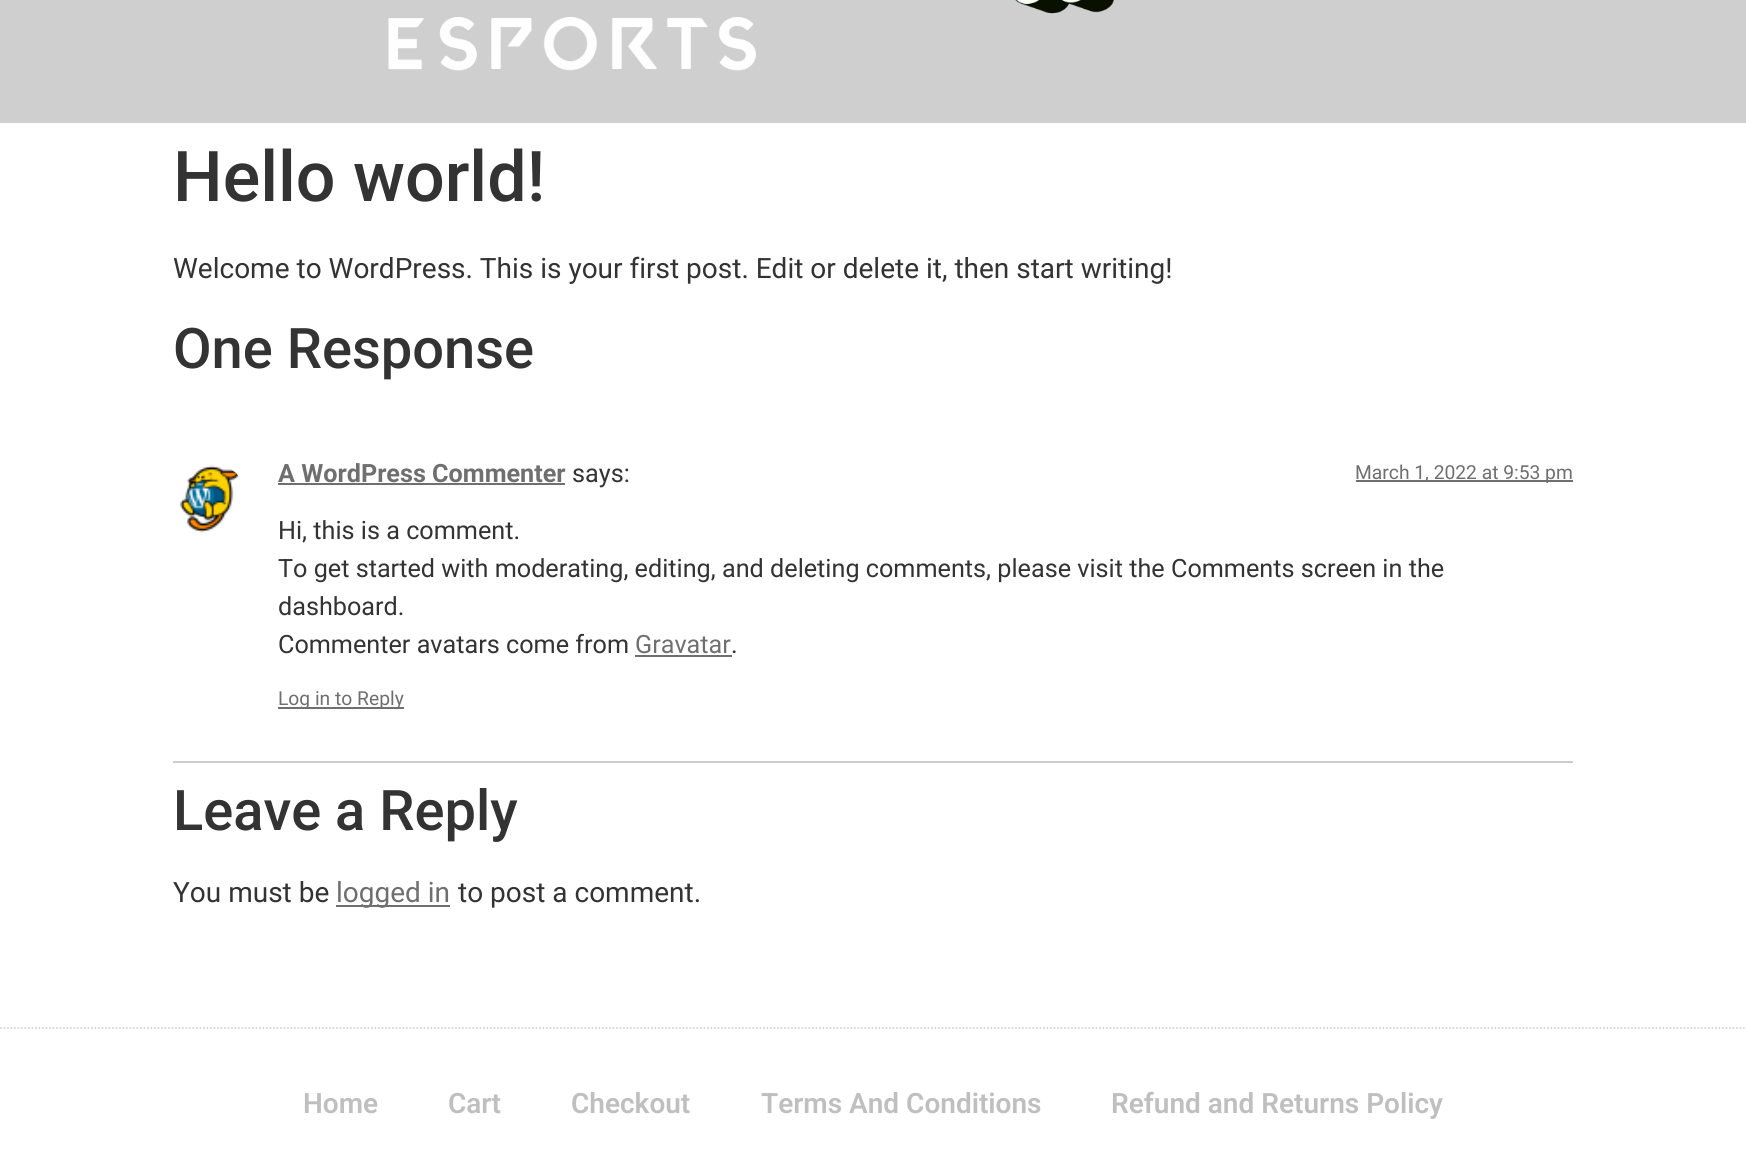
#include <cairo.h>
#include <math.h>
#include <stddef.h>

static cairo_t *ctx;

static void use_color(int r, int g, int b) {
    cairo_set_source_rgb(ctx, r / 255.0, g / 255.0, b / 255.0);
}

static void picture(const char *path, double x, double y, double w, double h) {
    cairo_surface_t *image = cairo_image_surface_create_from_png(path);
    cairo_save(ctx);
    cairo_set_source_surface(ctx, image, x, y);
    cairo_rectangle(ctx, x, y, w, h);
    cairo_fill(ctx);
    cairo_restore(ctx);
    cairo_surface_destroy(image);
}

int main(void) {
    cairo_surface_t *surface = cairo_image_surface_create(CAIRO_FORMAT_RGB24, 1746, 1162);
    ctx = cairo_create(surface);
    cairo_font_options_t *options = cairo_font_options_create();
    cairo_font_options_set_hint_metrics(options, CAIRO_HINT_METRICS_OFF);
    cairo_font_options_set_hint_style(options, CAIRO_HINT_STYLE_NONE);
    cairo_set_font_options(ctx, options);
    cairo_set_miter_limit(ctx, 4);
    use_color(255, 255, 255);
    cairo_paint(ctx);
    use_color(207, 207, 207);
    cairo_rectangle(ctx, 0, 0, 1746, 123);
    cairo_fill(ctx);
    picture("img1.png", 1015, 0, 99, 14);
    picture("img2.png", 388, 17, 368, 54);
    cairo_select_font_face(ctx, "Roboto Medium", CAIRO_FONT_SLANT_NORMAL, CAIRO_FONT_WEIGHT_NORMAL);
    cairo_set_font_size(ctx, 70);
    use_color(51, 51, 51);
    cairo_move_to(ctx, 173, 201);
    cairo_show_text(ctx, "Hello world!");
    cairo_select_font_face(ctx, "Roboto", CAIRO_FONT_SLANT_NORMAL, CAIRO_FONT_WEIGHT_NORMAL);
    cairo_set_font_size(ctx, 28);
    cairo_move_to(ctx, 173, 278);
    cairo_show_text(ctx, "Welcome to WordPress. This is your first post. Edit or delete it, then start writing!");
    cairo_select_font_face(ctx, "Roboto Medium", CAIRO_FONT_SLANT_NORMAL, CAIRO_FONT_WEIGHT_NORMAL);
    cairo_set_font_size(ctx, 56);
    cairo_move_to(ctx, 173, 368);
    cairo_show_text(ctx, "One Response");
    use_color(204, 204, 204);
    cairo_rectangle(ctx, 173, 761, 1400, 2);
    cairo_fill(ctx);
    picture("img3.png", 179, 465, 60, 68);
    cairo_select_font_face(ctx, "Roboto", CAIRO_FONT_SLANT_NORMAL, CAIRO_FONT_WEIGHT_BOLD);
    cairo_set_font_size(ctx, 25.2);
    use_color(111, 111, 111);
    cairo_move_to(ctx, 278, 482);
    cairo_show_text(ctx, "A WordPress Commenter");
    cairo_rectangle(ctx, 278, 483, 287, 2);
    cairo_fill(ctx);
    cairo_select_font_face(ctx, "Roboto", CAIRO_FONT_SLANT_NORMAL, CAIRO_FONT_WEIGHT_NORMAL);
    use_color(51, 51, 51);
    cairo_move_to(ctx, 572, 482);
    cairo_show_text(ctx, "says:");
    use_color(111, 111, 111);
    cairo_rectangle(ctx, 1356, 480, 217, 2);
    cairo_fill(ctx);
    cairo_set_font_size(ctx, 19.25);
    cairo_move_to(ctx, 1355, 479);
    cairo_show_text(ctx, "March 1, 2022 at 9:53 pm");
    cairo_set_font_size(ctx, 25.2);
    use_color(51, 51, 51);
    cairo_move_to(ctx, 278, 539);
    cairo_show_text(ctx, "Hi, this is a comment.");
    cairo_move_to(ctx, 278, 577);
    cairo_show_text(ctx, "To get started with moderating, editing, and deleting comments, please visit the Comments screen in the");
    cairo_move_to(ctx, 278, 615);
    cairo_show_text(ctx, "dashboard.");
    cairo_move_to(ctx, 278, 653);
    cairo_show_text(ctx, "Commenter avatars come from");
    use_color(111, 111, 111);
    cairo_move_to(ctx, 635, 653);
    cairo_show_text(ctx, "Gravatar");
    cairo_rectangle(ctx, 635, 655, 97, 2);
    cairo_fill(ctx);
    use_color(51, 51, 51);
    cairo_move_to(ctx, 731, 653);
    cairo_show_text(ctx, ".");
    use_color(111, 111, 111);
    cairo_rectangle(ctx, 278, 707, 126, 2);
    cairo_fill(ctx);
    cairo_set_font_size(ctx, 19.25);
    cairo_move_to(ctx, 278, 705);
    cairo_show_text(ctx, "Log in to Reply");
    cairo_select_font_face(ctx, "Roboto Medium", CAIRO_FONT_SLANT_NORMAL, CAIRO_FONT_WEIGHT_NORMAL);
    cairo_set_font_size(ctx, 56);
    use_color(51, 51, 51);
    cairo_move_to(ctx, 173, 830);
    cairo_show_text(ctx, "Leave a Reply");
    cairo_select_font_face(ctx, "Roboto", CAIRO_FONT_SLANT_NORMAL, CAIRO_FONT_WEIGHT_NORMAL);
    cairo_set_font_size(ctx, 28);
    cairo_move_to(ctx, 173, 902);
    cairo_show_text(ctx, "You must be");
    use_color(111, 111, 111);
    cairo_rectangle(ctx, 336, 905, 114, 2);
    cairo_fill(ctx);
    cairo_move_to(ctx, 336, 902);
    cairo_show_text(ctx, "logged in");
    use_color(51, 51, 51);
    cairo_move_to(ctx, 458, 902);
    cairo_show_text(ctx, "to post a comment.");
    cairo_new_path(ctx);
    cairo_move_to(ctx, 0, 1028);
    cairo_line_to(ctx, 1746.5, 1028);
    use_color(214, 214, 214);
    cairo_set_line_width(ctx, 1.8);
    cairo_set_dash(ctx, (double[]){1.75, 1.75}, 2, 0);
    cairo_stroke(ctx);
    cairo_select_font_face(ctx, "Roboto SemiBold", CAIRO_FONT_SLANT_NORMAL, CAIRO_FONT_WEIGHT_NORMAL);
    use_color(191, 191, 191);
    cairo_move_to(ctx, 303, 1113);
    cairo_show_text(ctx, "Home");
    cairo_move_to(ctx, 448, 1113);
    cairo_show_text(ctx, "Cart");
    cairo_move_to(ctx, 571, 1113);
    cairo_show_text(ctx, "Checkout");
    cairo_move_to(ctx, 761, 1113);
    cairo_show_text(ctx, "Terms And Conditions");
    cairo_move_to(ctx, 1111, 1113);
    cairo_show_text(ctx, "Refund and Returns Policy");
    cairo_surface_write_to_png(surface, "result.png");
    cairo_font_options_destroy(options);
    cairo_destroy(ctx);
    cairo_surface_destroy(surface);
    return 0;
}
